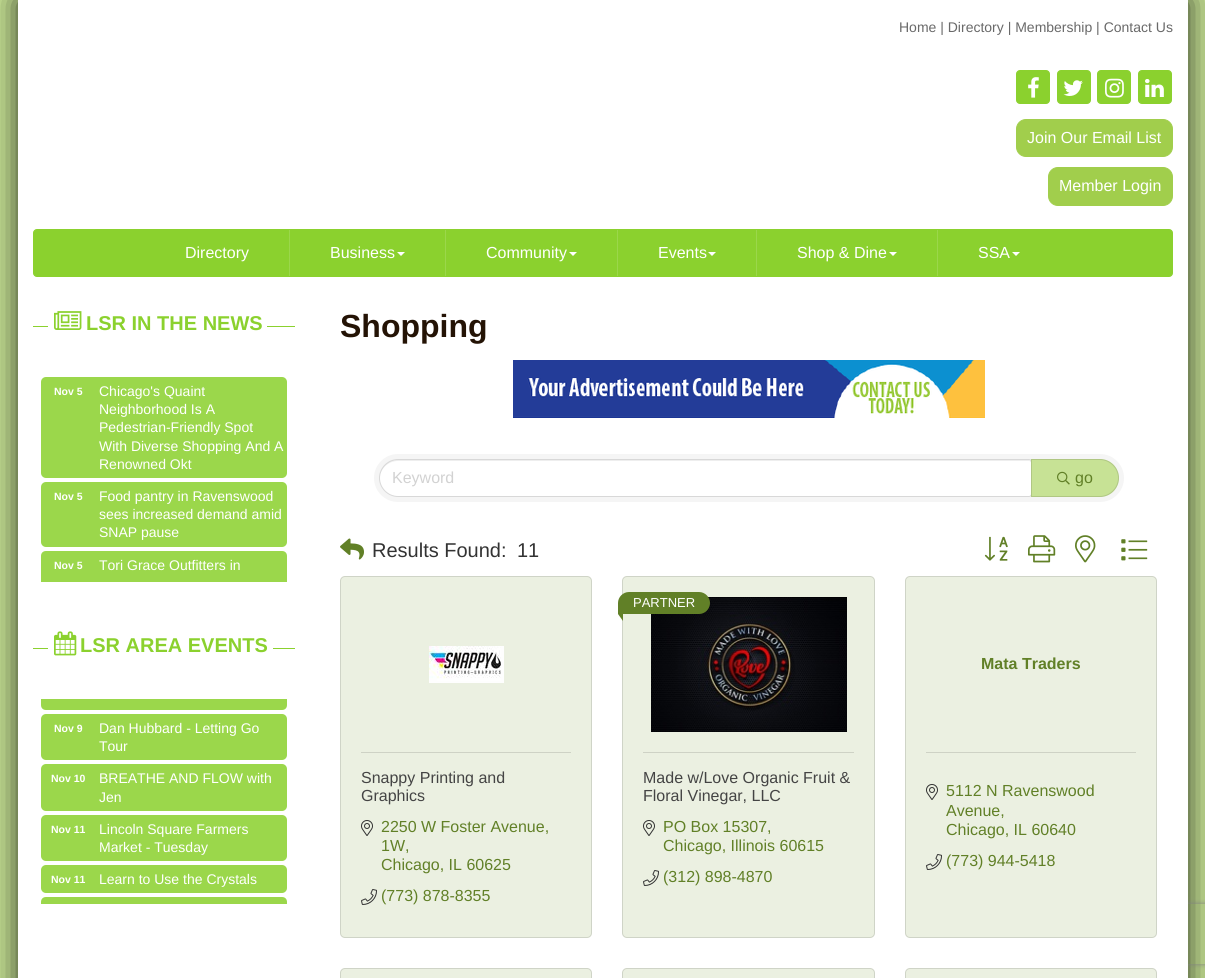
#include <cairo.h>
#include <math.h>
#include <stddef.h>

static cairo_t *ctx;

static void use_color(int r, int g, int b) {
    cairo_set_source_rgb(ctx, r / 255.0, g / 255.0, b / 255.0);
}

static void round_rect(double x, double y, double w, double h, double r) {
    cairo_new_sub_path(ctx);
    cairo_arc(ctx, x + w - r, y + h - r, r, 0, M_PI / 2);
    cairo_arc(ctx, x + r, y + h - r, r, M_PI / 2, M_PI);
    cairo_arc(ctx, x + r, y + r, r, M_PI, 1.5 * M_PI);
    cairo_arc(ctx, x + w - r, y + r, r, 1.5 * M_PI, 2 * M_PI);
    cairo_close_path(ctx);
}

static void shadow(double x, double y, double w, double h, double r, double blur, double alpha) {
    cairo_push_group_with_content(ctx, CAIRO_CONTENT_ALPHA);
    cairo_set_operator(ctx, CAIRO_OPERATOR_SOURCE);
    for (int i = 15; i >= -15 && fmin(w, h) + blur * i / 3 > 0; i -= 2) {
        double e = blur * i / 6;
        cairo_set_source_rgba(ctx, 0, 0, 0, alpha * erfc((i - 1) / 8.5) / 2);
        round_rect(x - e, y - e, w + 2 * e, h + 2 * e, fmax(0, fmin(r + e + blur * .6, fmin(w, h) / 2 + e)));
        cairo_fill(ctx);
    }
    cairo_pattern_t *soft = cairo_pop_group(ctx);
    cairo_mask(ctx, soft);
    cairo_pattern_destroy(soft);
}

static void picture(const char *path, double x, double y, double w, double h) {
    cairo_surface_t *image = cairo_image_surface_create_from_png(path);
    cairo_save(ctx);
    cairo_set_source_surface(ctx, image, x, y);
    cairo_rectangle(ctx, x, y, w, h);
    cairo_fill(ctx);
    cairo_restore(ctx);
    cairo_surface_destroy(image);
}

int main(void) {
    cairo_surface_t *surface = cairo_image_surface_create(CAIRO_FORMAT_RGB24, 1205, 978);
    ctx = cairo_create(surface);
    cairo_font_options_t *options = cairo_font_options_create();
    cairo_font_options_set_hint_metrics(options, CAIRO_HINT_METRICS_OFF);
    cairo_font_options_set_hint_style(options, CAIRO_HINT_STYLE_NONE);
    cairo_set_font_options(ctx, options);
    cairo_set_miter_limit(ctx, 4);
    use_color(199, 226, 149);
    cairo_paint(ctx);
    use_color(0, 0, 0);
    shadow(18, 0, 1170, 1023, 0, 15, 0.8);
    cairo_save(ctx);
    cairo_set_fill_rule(ctx, CAIRO_FILL_RULE_EVEN_ODD);
    cairo_new_path(ctx);
    cairo_move_to(ctx, 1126, 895);
    cairo_line_to(ctx, 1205, 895);
    cairo_line_to(ctx, 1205, 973);
    cairo_line_to(ctx, 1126, 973);
    cairo_close_path(ctx);
    cairo_move_to(ctx, 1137, 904);
    cairo_line_to(ctx, 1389, 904);
    cairo_curve_to(ctx, 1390, 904, 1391, 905, 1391, 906);
    cairo_line_to(ctx, 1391, 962);
    cairo_curve_to(ctx, 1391, 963, 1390, 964, 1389, 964);
    cairo_line_to(ctx, 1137, 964);
    cairo_curve_to(ctx, 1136, 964, 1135, 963, 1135, 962);
    cairo_line_to(ctx, 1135, 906);
    cairo_curve_to(ctx, 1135, 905, 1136, 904, 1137, 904);
    cairo_close_path(ctx);
    cairo_clip(ctx);
    use_color(128, 128, 128);
    shadow(1135, 904, 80, 60, 2, 2.5, 1);
    cairo_restore(ctx);
    use_color(255, 255, 255);
    cairo_rectangle(ctx, 18, 0, 1170, 978);
    cairo_fill(ctx);
    cairo_select_font_face(ctx, "Liberation Sans", CAIRO_FONT_SLANT_NORMAL, CAIRO_FONT_WEIGHT_NORMAL);
    cairo_set_font_size(ctx, 14);
    use_color(105, 105, 105);
    cairo_move_to(ctx, 899, 32);
    cairo_show_text(ctx, "Home | Directory | Membership | Contact Us");
    use_color(139, 209, 46);
    round_rect(1016.5, 70.5, 33, 33, 3.5);
    cairo_fill_preserve(ctx);
    cairo_set_line_width(ctx, 1);
    cairo_stroke(ctx);
    picture("img1.png", 1028, 77, 11, 21);
    round_rect(1057.5, 70.5, 33, 33, 3.5);
    cairo_fill_preserve(ctx);
    cairo_stroke(ctx);
    picture("img2.png", 1063, 80, 20, 16);
    round_rect(1097.5, 70.5, 33, 33, 3.5);
    cairo_fill_preserve(ctx);
    cairo_stroke(ctx);
    picture("img3.png", 1105, 78, 19, 20);
    round_rect(1138.5, 70.5, 33, 33, 3.5);
    cairo_fill_preserve(ctx);
    cairo_stroke(ctx);
    picture("img4.png", 1145, 79, 19, 18);
    use_color(161, 206, 76);
    round_rect(1016.5, 119.5, 156, 37, 9.5);
    cairo_fill_preserve(ctx);
    cairo_stroke(ctx);
    cairo_set_font_size(ctx, 16);
    use_color(255, 255, 255);
    cairo_move_to(ctx, 1027, 143);
    cairo_show_text(ctx, "Join Our Email List");
    use_color(161, 206, 76);
    round_rect(1048.5, 167.5, 124, 38, 9.5);
    cairo_fill_preserve(ctx);
    cairo_stroke(ctx);
    use_color(255, 255, 255);
    cairo_move_to(ctx, 1059, 191);
    cairo_show_text(ctx, "Member Login");
    use_color(139, 209, 46);
    round_rect(33.5, 229.5, 1139, 47, 3.5);
    cairo_fill_preserve(ctx);
    cairo_stroke(ctx);
    use_color(155, 215, 75);
    cairo_rectangle(ctx, 289, 230, 1, 46);
    cairo_fill(ctx);
    use_color(255, 255, 255);
    cairo_move_to(ctx, 185, 258);
    cairo_show_text(ctx, "Directory");
    use_color(155, 215, 75);
    cairo_rectangle(ctx, 445, 230, 1, 46);
    cairo_fill(ctx);
    use_color(255, 255, 255);
    cairo_move_to(ctx, 330, 258);
    cairo_show_text(ctx, "Business");
    cairo_new_path(ctx);
    cairo_move_to(ctx, 397, 252);
    cairo_line_to(ctx, 405, 252);
    cairo_line_to(ctx, 401, 256);
    cairo_close_path(ctx);
    cairo_fill(ctx);
    use_color(155, 215, 75);
    cairo_rectangle(ctx, 617, 230, 1, 46);
    cairo_fill(ctx);
    use_color(255, 255, 255);
    cairo_move_to(ctx, 486, 258);
    cairo_show_text(ctx, "Community");
    cairo_new_path(ctx);
    cairo_move_to(ctx, 569, 252);
    cairo_line_to(ctx, 577, 252);
    cairo_line_to(ctx, 573, 256);
    cairo_close_path(ctx);
    cairo_fill(ctx);
    use_color(155, 215, 75);
    cairo_rectangle(ctx, 756, 230, 1, 46);
    cairo_fill(ctx);
    use_color(255, 255, 255);
    cairo_move_to(ctx, 658, 258);
    cairo_show_text(ctx, "Events");
    cairo_new_path(ctx);
    cairo_move_to(ctx, 708, 252);
    cairo_line_to(ctx, 716, 252);
    cairo_line_to(ctx, 712, 256);
    cairo_close_path(ctx);
    cairo_fill(ctx);
    use_color(155, 215, 75);
    cairo_rectangle(ctx, 937, 230, 1, 46);
    cairo_fill(ctx);
    use_color(255, 255, 255);
    cairo_move_to(ctx, 797, 258);
    cairo_show_text(ctx, "Shop & Dine");
    cairo_new_path(ctx);
    cairo_move_to(ctx, 889, 252);
    cairo_line_to(ctx, 897, 252);
    cairo_line_to(ctx, 893, 256);
    cairo_close_path(ctx);
    cairo_fill(ctx);
    cairo_move_to(ctx, 978, 258);
    cairo_show_text(ctx, "SSA");
    cairo_new_path(ctx);
    cairo_move_to(ctx, 1012, 252);
    cairo_line_to(ctx, 1020, 252);
    cairo_line_to(ctx, 1016, 256);
    cairo_close_path(ctx);
    cairo_fill(ctx);
    use_color(139, 209, 46);
    cairo_rectangle(ctx, 33, 326, 262, 1);
    cairo_fill(ctx);
    use_color(255, 255, 255);
    cairo_rectangle(ctx, 48, 326, 219, 1);
    cairo_fill(ctx);
    picture("img5.png", 54, 311, 28, 19);
    cairo_select_font_face(ctx, "Liberation Sans", CAIRO_FONT_SLANT_NORMAL, CAIRO_FONT_WEIGHT_BOLD);
    cairo_set_font_size(ctx, 20);
    use_color(139, 209, 46);
    cairo_move_to(ctx, 86, 330);
    cairo_show_text(ctx, "LSR IN THE NEWS");
    use_color(155, 215, 75);
    round_rect(41, 377, 246, 101, 5);
    cairo_fill(ctx);
    cairo_set_font_size(ctx, 10.5);
    use_color(255, 255, 255);
    cairo_move_to(ctx, 54, 395);
    cairo_show_text(ctx, "Nov 5");
    cairo_select_font_face(ctx, "Liberation Sans", CAIRO_FONT_SLANT_NORMAL, CAIRO_FONT_WEIGHT_NORMAL);
    cairo_set_font_size(ctx, 14);
    cairo_move_to(ctx, 99, 396);
    cairo_show_text(ctx, "Chicago's Quaint");
    cairo_move_to(ctx, 99, 414);
    cairo_show_text(ctx, "Neighborhood Is A");
    cairo_move_to(ctx, 99, 432);
    cairo_show_text(ctx, "Pedestrian-Friendly Spot");
    cairo_move_to(ctx, 99, 451);
    cairo_show_text(ctx, "With Diverse Shopping And A");
    cairo_move_to(ctx, 99, 469);
    cairo_show_text(ctx, "Renowned Okt");
    use_color(155, 215, 75);
    round_rect(41, 482, 246, 65, 5);
    cairo_fill(ctx);
    cairo_select_font_face(ctx, "Liberation Sans", CAIRO_FONT_SLANT_NORMAL, CAIRO_FONT_WEIGHT_BOLD);
    cairo_set_font_size(ctx, 10.5);
    use_color(255, 255, 255);
    cairo_move_to(ctx, 54, 500);
    cairo_show_text(ctx, "Nov 5");
    cairo_select_font_face(ctx, "Liberation Sans", CAIRO_FONT_SLANT_NORMAL, CAIRO_FONT_WEIGHT_NORMAL);
    cairo_set_font_size(ctx, 14);
    cairo_move_to(ctx, 99, 501);
    cairo_show_text(ctx, "Food pantry in Ravenswood");
    cairo_move_to(ctx, 99, 519);
    cairo_show_text(ctx, "sees increased demand amid");
    cairo_move_to(ctx, 99, 537);
    cairo_show_text(ctx, "SNAP pause");
    use_color(155, 215, 75);
    cairo_new_path(ctx);
    cairo_move_to(ctx, 46, 551);
    cairo_line_to(ctx, 282, 551);
    cairo_curve_to(ctx, 285, 551, 287, 553, 287, 556);
    cairo_line_to(ctx, 287, 582);
    cairo_line_to(ctx, 41, 582);
    cairo_line_to(ctx, 41, 556);
    cairo_curve_to(ctx, 41, 553, 43, 551, 46, 551);
    cairo_close_path(ctx);
    cairo_fill(ctx);
    cairo_select_font_face(ctx, "Liberation Sans", CAIRO_FONT_SLANT_NORMAL, CAIRO_FONT_WEIGHT_BOLD);
    cairo_set_font_size(ctx, 10.5);
    use_color(255, 255, 255);
    cairo_move_to(ctx, 54, 569);
    cairo_show_text(ctx, "Nov 5");
    cairo_select_font_face(ctx, "Liberation Sans", CAIRO_FONT_SLANT_NORMAL, CAIRO_FONT_WEIGHT_NORMAL);
    cairo_set_font_size(ctx, 14);
    cairo_move_to(ctx, 99, 570);
    cairo_show_text(ctx, "Tori Grace Outfitters in");
    use_color(139, 209, 46);
    cairo_rectangle(ctx, 33, 648, 262, 1);
    cairo_fill(ctx);
    use_color(255, 255, 255);
    cairo_rectangle(ctx, 48, 648, 225, 1);
    cairo_fill(ctx);
    picture("img6.png", 54, 631, 23, 25);
    cairo_select_font_face(ctx, "Liberation Sans", CAIRO_FONT_SLANT_NORMAL, CAIRO_FONT_WEIGHT_BOLD);
    cairo_set_font_size(ctx, 20);
    use_color(139, 209, 46);
    cairo_move_to(ctx, 80, 652);
    cairo_show_text(ctx, "LSR AREA EVENTS");
    use_color(155, 215, 75);
    cairo_new_path(ctx);
    cairo_move_to(ctx, 41, 699);
    cairo_line_to(ctx, 287, 699);
    cairo_line_to(ctx, 287, 705);
    cairo_curve_to(ctx, 287, 708, 285, 710, 282, 710);
    cairo_line_to(ctx, 46, 710);
    cairo_curve_to(ctx, 43, 710, 41, 708, 41, 705);
    cairo_close_path(ctx);
    cairo_fill(ctx);
    round_rect(41, 714, 246, 46, 5);
    cairo_fill(ctx);
    cairo_set_font_size(ctx, 10.5);
    use_color(255, 255, 255);
    cairo_move_to(ctx, 54, 732);
    cairo_show_text(ctx, "Nov 9");
    cairo_select_font_face(ctx, "Liberation Sans", CAIRO_FONT_SLANT_NORMAL, CAIRO_FONT_WEIGHT_NORMAL);
    cairo_set_font_size(ctx, 14);
    cairo_move_to(ctx, 99, 733);
    cairo_show_text(ctx, "Dan Hubbard - Letting Go");
    cairo_move_to(ctx, 99, 751);
    cairo_show_text(ctx, "Tour");
    use_color(155, 215, 75);
    round_rect(41, 764, 246, 47, 5);
    cairo_fill(ctx);
    cairo_select_font_face(ctx, "Liberation Sans", CAIRO_FONT_SLANT_NORMAL, CAIRO_FONT_WEIGHT_BOLD);
    cairo_set_font_size(ctx, 10.5);
    use_color(255, 255, 255);
    cairo_move_to(ctx, 51, 782);
    cairo_show_text(ctx, "Nov 10");
    cairo_select_font_face(ctx, "Liberation Sans", CAIRO_FONT_SLANT_NORMAL, CAIRO_FONT_WEIGHT_NORMAL);
    cairo_set_font_size(ctx, 14);
    cairo_move_to(ctx, 99, 783);
    cairo_show_text(ctx, "BREATHE AND FLOW with");
    cairo_move_to(ctx, 99, 802);
    cairo_show_text(ctx, "Jen");
    use_color(155, 215, 75);
    round_rect(41, 815, 246, 46, 5);
    cairo_fill(ctx);
    cairo_select_font_face(ctx, "Liberation Sans", CAIRO_FONT_SLANT_NORMAL, CAIRO_FONT_WEIGHT_BOLD);
    cairo_set_font_size(ctx, 10.5);
    use_color(255, 255, 255);
    cairo_move_to(ctx, 51, 833);
    cairo_show_text(ctx, "Nov 11");
    cairo_select_font_face(ctx, "Liberation Sans", CAIRO_FONT_SLANT_NORMAL, CAIRO_FONT_WEIGHT_NORMAL);
    cairo_set_font_size(ctx, 14);
    cairo_move_to(ctx, 99, 834);
    cairo_show_text(ctx, "Lincoln Square Farmers");
    cairo_move_to(ctx, 99, 852);
    cairo_show_text(ctx, "Market - Tuesday");
    use_color(155, 215, 75);
    round_rect(41, 865, 246, 28, 5);
    cairo_fill(ctx);
    cairo_select_font_face(ctx, "Liberation Sans", CAIRO_FONT_SLANT_NORMAL, CAIRO_FONT_WEIGHT_BOLD);
    cairo_set_font_size(ctx, 10.5);
    use_color(255, 255, 255);
    cairo_move_to(ctx, 51, 883);
    cairo_show_text(ctx, "Nov 11");
    cairo_select_font_face(ctx, "Liberation Sans", CAIRO_FONT_SLANT_NORMAL, CAIRO_FONT_WEIGHT_NORMAL);
    cairo_set_font_size(ctx, 14);
    cairo_move_to(ctx, 99, 884);
    cairo_show_text(ctx, "Learn to Use the Crystals");
    use_color(155, 215, 75);
    cairo_new_path(ctx);
    cairo_move_to(ctx, 46, 897);
    cairo_line_to(ctx, 282, 897);
    cairo_curve_to(ctx, 285, 897, 287, 899, 287, 902);
    cairo_line_to(ctx, 287, 904);
    cairo_line_to(ctx, 41, 904);
    cairo_line_to(ctx, 41, 902);
    cairo_curve_to(ctx, 41, 899, 43, 897, 46, 897);
    cairo_close_path(ctx);
    cairo_fill(ctx);
    cairo_select_font_face(ctx, "Liberation Sans", CAIRO_FONT_SLANT_NORMAL, CAIRO_FONT_WEIGHT_BOLD);
    cairo_set_font_size(ctx, 32);
    use_color(36, 19, 5);
    cairo_move_to(ctx, 340, 337);
    cairo_show_text(ctx, "Shopping");
    picture("img7.png", 513, 360, 472, 58);
    use_color(245, 245, 245);
    round_rect(374, 454, 750, 48, 24);
    cairo_fill(ctx);
    use_color(255, 255, 255);
    cairo_new_path(ctx);
    cairo_move_to(ctx, 398, 460);
    cairo_line_to(ctx, 1029, 460);
    cairo_curve_to(ctx, 1030, 460, 1031, 461, 1031, 462);
    cairo_line_to(ctx, 1031, 494);
    cairo_curve_to(ctx, 1031, 495, 1030, 496, 1029, 496);
    cairo_line_to(ctx, 398, 496);
    cairo_curve_to(ctx, 388, 496, 380, 488, 380, 478);
    cairo_curve_to(ctx, 380, 468, 388, 460, 398, 460);
    cairo_close_path(ctx);
    cairo_fill(ctx);
    cairo_set_source_rgba(ctx, 0, 0, 0, 0.07);
    cairo_new_path(ctx);
    cairo_move_to(ctx, 398, 461);
    cairo_line_to(ctx, 1029, 461);
    cairo_curve_to(ctx, 1030, 461, 1031, 462, 1031, 463);
    cairo_line_to(ctx, 1031, 461);
    cairo_line_to(ctx, 1029, 460);
    cairo_line_to(ctx, 398, 460);
    cairo_curve_to(ctx, 388, 460, 380, 468, 380, 478);
    cairo_curve_to(ctx, 380, 469, 388, 461, 398, 461);
    cairo_close_path(ctx);
    cairo_fill(ctx);
    cairo_new_path(ctx);
    cairo_move_to(ctx, 398, 459.5);
    cairo_line_to(ctx, 1029, 459.5);
    cairo_curve_to(ctx, 1030.5, 459.5, 1031.5, 460.5, 1031.5, 462);
    cairo_line_to(ctx, 1031.5, 494);
    cairo_curve_to(ctx, 1031.5, 495.5, 1030.5, 496.5, 1029, 496.5);
    cairo_line_to(ctx, 398, 496.5);
    cairo_curve_to(ctx, 388, 496.5, 379.5, 488, 379.5, 478);
    cairo_curve_to(ctx, 379.5, 468, 388, 459.5, 398, 459.5);
    cairo_close_path(ctx);
    cairo_set_source_rgba(ctx, 0, 0, 0, 0.12);
    cairo_stroke(ctx);
    cairo_select_font_face(ctx, "Liberation Sans", CAIRO_FONT_SLANT_NORMAL, CAIRO_FONT_WEIGHT_NORMAL);
    cairo_set_font_size(ctx, 16);
    use_color(210, 210, 210);
    cairo_move_to(ctx, 392, 483);
    cairo_show_text(ctx, "Keyword");
    use_color(199, 226, 149);
    cairo_new_path(ctx);
    cairo_move_to(ctx, 1031, 459);
    cairo_line_to(ctx, 1100, 459);
    cairo_curve_to(ctx, 1110.5, 459, 1119, 467.5, 1119, 478);
    cairo_curve_to(ctx, 1119, 488.5, 1110.5, 497, 1100, 497);
    cairo_line_to(ctx, 1031, 497);
    cairo_close_path(ctx);
    cairo_fill(ctx);
    cairo_new_path(ctx);
    cairo_move_to(ctx, 1031.5, 459.5);
    cairo_line_to(ctx, 1100, 459.5);
    cairo_curve_to(ctx, 1110, 459.5, 1118.5, 468, 1118.5, 478);
    cairo_curve_to(ctx, 1118.5, 488, 1110, 496.5, 1100, 496.5);
    cairo_line_to(ctx, 1031.5, 496.5);
    cairo_close_path(ctx);
    cairo_set_source_rgba(ctx, 0, 0, 0, 0.12);
    cairo_stroke(ctx);
    picture("img8.png", 1057, 471, 13, 14);
    use_color(97, 128, 39);
    cairo_move_to(ctx, 1075, 483);
    cairo_show_text(ctx, "go");
    picture("img9.png", 340, 538, 24, 22);
    cairo_set_font_size(ctx, 20);
    use_color(51, 51, 51);
    cairo_move_to(ctx, 372, 557);
    cairo_show_text(ctx, "Results Found:");
    cairo_move_to(ctx, 517, 557);
    cairo_show_text(ctx, "11");
    picture("img10.png", 984, 536, 24, 25);
    picture("img11.png", 1028, 535, 28, 28);
    picture("img12.png", 1075, 535, 21, 28);
    picture("img13.png", 1121, 539, 27, 22);
    use_color(235, 240, 225);
    round_rect(340, 576, 252, 362, 5);
    cairo_fill(ctx);
    round_rect(340.5, 576.5, 251, 361, 4.5);
    cairo_set_source_rgba(ctx, 0, 0, 0, 0.12);
    cairo_stroke(ctx);
    picture("img14.png", 429, 646, 75, 37);
    use_color(206, 210, 197);
    cairo_rectangle(ctx, 361, 752, 210, 1);
    cairo_fill(ctx);
    cairo_set_font_size(ctx, 16);
    use_color(68, 68, 68);
    cairo_move_to(ctx, 361, 783);
    cairo_show_text(ctx, "Snappy Printing and");
    cairo_move_to(ctx, 361, 801);
    cairo_show_text(ctx, "Graphics");
    picture("img15.png", 361, 820, 12, 16);
    use_color(97, 128, 39);
    cairo_move_to(ctx, 381, 832);
    cairo_show_text(ctx, "2250 W Foster Avenue,");
    cairo_move_to(ctx, 381, 851);
    cairo_show_text(ctx, "1W,");
    cairo_move_to(ctx, 381, 870);
    cairo_show_text(ctx, "Chicago, IL 60625");
    picture("img16.png", 361, 889, 16, 16);
    cairo_move_to(ctx, 381, 901);
    cairo_show_text(ctx, "(773) 878-8355");
    use_color(235, 240, 225);
    round_rect(622, 576, 253, 362, 5);
    cairo_fill(ctx);
    round_rect(622.5, 576.5, 252, 361, 4.5);
    cairo_set_source_rgba(ctx, 0, 0, 0, 0.12);
    cairo_stroke(ctx);
    picture("img17.png", 651, 597, 196, 135);
    use_color(97, 128, 39);
    cairo_new_path(ctx);
    cairo_move_to(ctx, 629, 592);
    cairo_line_to(ctx, 699, 592);
    cairo_curve_to(ctx, 705, 592, 710, 597, 710, 603);
    cairo_curve_to(ctx, 710, 609, 705, 614, 699, 614);
    cairo_line_to(ctx, 618.5, 614);
    cairo_curve_to(ctx, 618, 614, 618, 614, 618, 613.5);
    cairo_line_to(ctx, 618, 603);
    cairo_curve_to(ctx, 618, 597, 623, 592, 629, 592);
    cairo_close_path(ctx);
    cairo_fill(ctx);
    cairo_set_font_size(ctx, 13);
    use_color(255, 255, 255);
    cairo_move_to(ctx, 633, 607);
    cairo_show_text(ctx, "PARTNER");
    use_color(97, 128, 39);
    cairo_new_path(ctx);
    cairo_move_to(ctx, 623, 607);
    cairo_line_to(ctx, 623, 621);
    cairo_line_to(ctx, 618, 614);
    cairo_close_path(ctx);
    cairo_fill(ctx);
    use_color(206, 210, 197);
    cairo_rectangle(ctx, 643, 752, 211, 1);
    cairo_fill(ctx);
    cairo_set_font_size(ctx, 16);
    use_color(68, 68, 68);
    cairo_move_to(ctx, 643, 783);
    cairo_show_text(ctx, "Made w/Love Organic Fruit &");
    cairo_move_to(ctx, 643, 801);
    cairo_show_text(ctx, "Floral Vinegar, LLC");
    picture("img15.png", 643, 820, 12, 16);
    use_color(97, 128, 39);
    cairo_move_to(ctx, 663, 832);
    cairo_show_text(ctx, "PO Box 15307,");
    cairo_move_to(ctx, 663, 851);
    cairo_show_text(ctx, "Chicago, Illinois 60615");
    picture("img16.png", 643, 870, 16, 16);
    cairo_move_to(ctx, 663, 882);
    cairo_show_text(ctx, "(312) 898-4870");
    use_color(235, 240, 225);
    round_rect(905, 576, 252, 362, 5);
    cairo_fill(ctx);
    round_rect(905.5, 576.5, 251, 361, 4.5);
    cairo_set_source_rgba(ctx, 0, 0, 0, 0.12);
    cairo_stroke(ctx);
    cairo_select_font_face(ctx, "Liberation Sans", CAIRO_FONT_SLANT_NORMAL, CAIRO_FONT_WEIGHT_BOLD);
    use_color(97, 128, 39);
    cairo_move_to(ctx, 981, 669);
    cairo_show_text(ctx, "Mata Traders");
    use_color(206, 210, 197);
    cairo_rectangle(ctx, 926, 752, 210, 1);
    cairo_fill(ctx);
    picture("img15.png", 926, 784, 12, 16);
    cairo_select_font_face(ctx, "Liberation Sans", CAIRO_FONT_SLANT_NORMAL, CAIRO_FONT_WEIGHT_NORMAL);
    use_color(97, 128, 39);
    cairo_move_to(ctx, 946, 796);
    cairo_show_text(ctx, "5112 N Ravenswood");
    cairo_move_to(ctx, 946, 816);
    cairo_show_text(ctx, "Avenue,");
    cairo_move_to(ctx, 946, 835);
    cairo_show_text(ctx, "Chicago, IL 60640");
    picture("img16.png", 926, 854, 16, 16);
    cairo_move_to(ctx, 946, 866);
    cairo_show_text(ctx, "(773) 944-5418");
    use_color(235, 240, 225);
    round_rect(340, 968, 252, 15, 5);
    cairo_fill(ctx);
    round_rect(340.5, 968.5, 251, 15, 4.5);
    cairo_set_source_rgba(ctx, 0, 0, 0, 0.12);
    cairo_stroke(ctx);
    use_color(235, 240, 225);
    round_rect(622, 968, 253, 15, 5);
    cairo_fill(ctx);
    round_rect(622.5, 968.5, 252, 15, 4.5);
    cairo_set_source_rgba(ctx, 0, 0, 0, 0.12);
    cairo_stroke(ctx);
    use_color(235, 240, 225);
    round_rect(905, 968, 252, 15, 5);
    cairo_fill(ctx);
    round_rect(905.5, 968.5, 251, 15, 4.5);
    cairo_set_source_rgba(ctx, 0, 0, 0, 0.12);
    cairo_stroke(ctx);
    cairo_surface_write_to_png(surface, "result.png");
    cairo_font_options_destroy(options);
    cairo_destroy(ctx);
    cairo_surface_destroy(surface);
    return 0;
}
